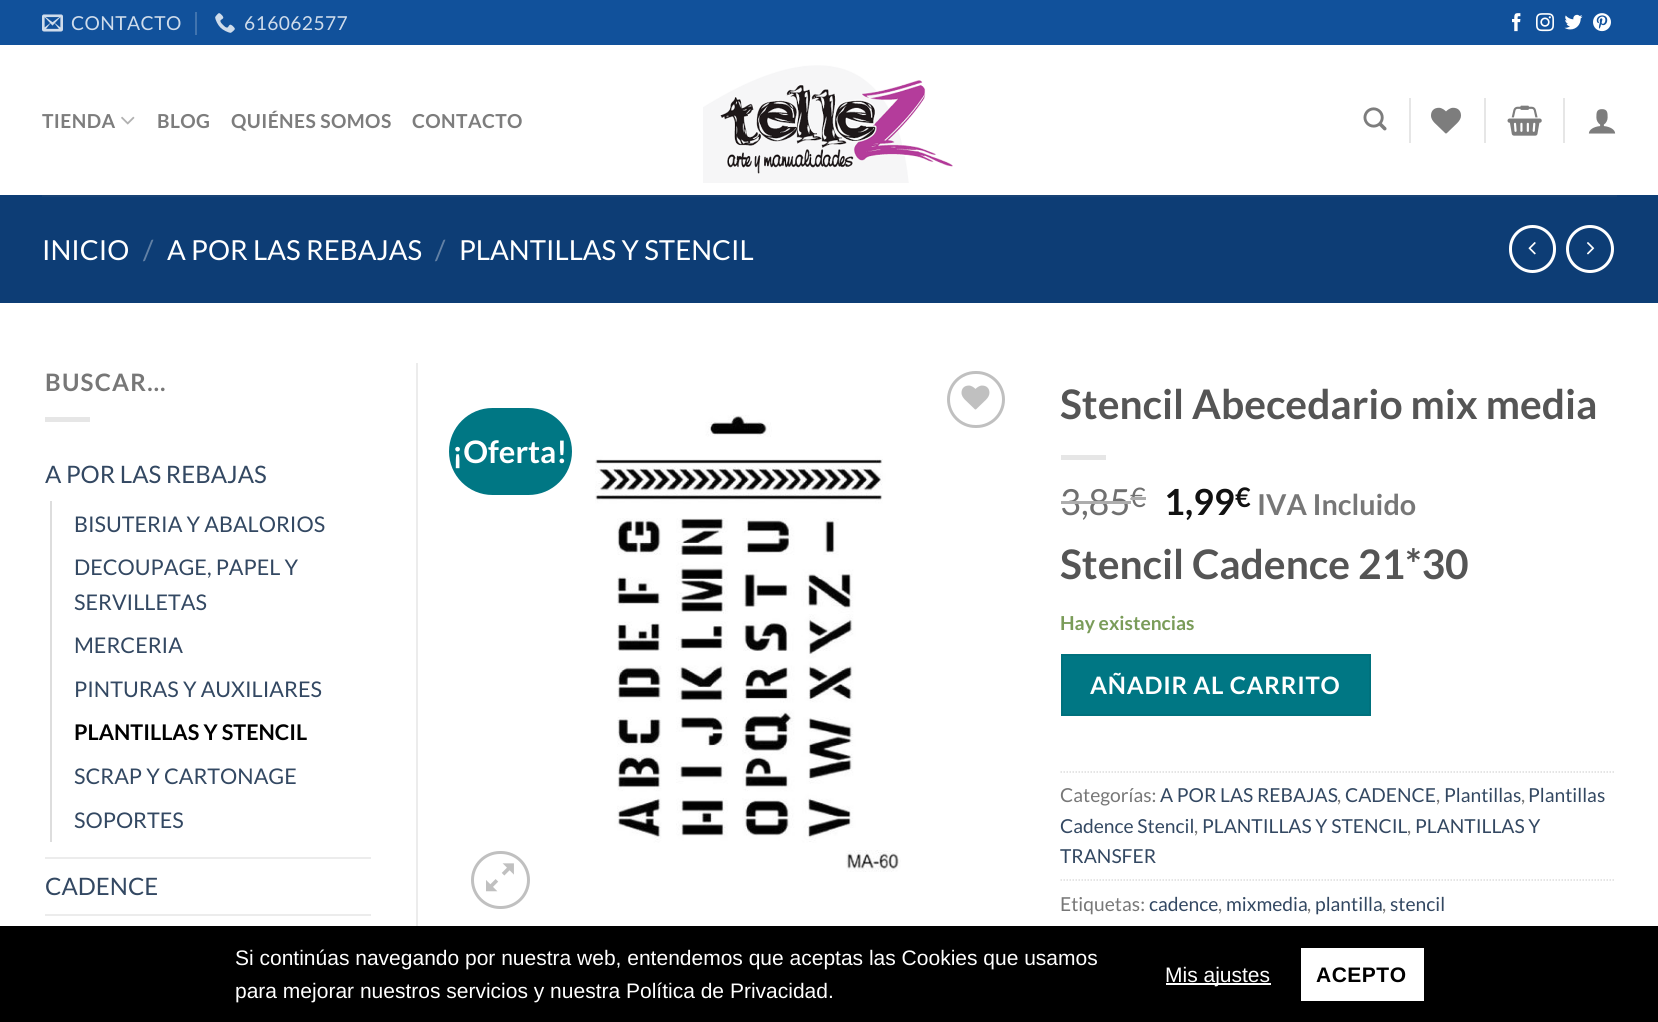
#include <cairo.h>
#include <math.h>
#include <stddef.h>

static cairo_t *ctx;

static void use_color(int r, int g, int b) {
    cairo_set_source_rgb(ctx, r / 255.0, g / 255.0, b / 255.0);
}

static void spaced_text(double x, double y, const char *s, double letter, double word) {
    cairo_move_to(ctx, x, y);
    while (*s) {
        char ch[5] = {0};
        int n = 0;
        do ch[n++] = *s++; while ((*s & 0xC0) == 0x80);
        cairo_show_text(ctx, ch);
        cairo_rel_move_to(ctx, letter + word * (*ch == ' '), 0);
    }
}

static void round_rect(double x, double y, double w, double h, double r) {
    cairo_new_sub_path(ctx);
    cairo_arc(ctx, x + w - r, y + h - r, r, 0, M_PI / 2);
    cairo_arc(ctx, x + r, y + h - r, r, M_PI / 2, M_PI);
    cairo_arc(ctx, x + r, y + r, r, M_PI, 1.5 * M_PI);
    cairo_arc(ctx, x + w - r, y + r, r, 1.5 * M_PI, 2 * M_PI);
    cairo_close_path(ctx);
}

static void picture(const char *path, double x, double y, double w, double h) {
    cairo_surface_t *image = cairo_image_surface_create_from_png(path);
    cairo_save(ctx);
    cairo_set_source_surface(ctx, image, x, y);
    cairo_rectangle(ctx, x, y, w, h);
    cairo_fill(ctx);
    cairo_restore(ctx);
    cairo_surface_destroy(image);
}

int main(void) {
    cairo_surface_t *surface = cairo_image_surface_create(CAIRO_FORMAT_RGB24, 1658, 1022);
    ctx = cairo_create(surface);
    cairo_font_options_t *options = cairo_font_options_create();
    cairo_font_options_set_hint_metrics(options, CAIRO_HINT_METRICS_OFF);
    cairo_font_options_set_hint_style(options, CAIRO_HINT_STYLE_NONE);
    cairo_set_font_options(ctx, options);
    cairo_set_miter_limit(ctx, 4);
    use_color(255, 255, 255);
    cairo_paint(ctx);
    use_color(17, 81, 155);
    cairo_rectangle(ctx, 0, 0, 1658, 45);
    cairo_fill(ctx);
    picture("img1.png", 42, 14, 21, 18);
    cairo_select_font_face(ctx, "Lato", CAIRO_FONT_SLANT_NORMAL, CAIRO_FONT_WEIGHT_NORMAL);
    cairo_set_font_size(ctx, 19.25);
    use_color(207, 220, 235);
    spaced_text(71, 30, "CONTACTO", 0.4, 0);
    use_color(65, 116, 175);
    cairo_rectangle(ctx, 195, 12, 2, 23);
    cairo_fill(ctx);
    picture("img2.png", 215, 13, 20, 20);
    use_color(207, 220, 235);
    spaced_text(244, 30, "616062577", 0.4, 0);
    picture("img3.png", 1512, 13, 9, 19);
    picture("img4.png", 1536, 13, 18, 19);
    picture("img5.png", 1564, 14, 19, 16);
    picture("img6.png", 1593, 13, 18, 19);
    cairo_select_font_face(ctx, "Lato", CAIRO_FONT_SLANT_NORMAL, CAIRO_FONT_WEIGHT_BOLD);
    use_color(125, 125, 125);
    spaced_text(42, 128, "TIENDA", 0.4, 0);
    picture("img7.png", 121, 116, 14, 9);
    spaced_text(157, 128, "BLOG", 0.4, 0);
    spaced_text(231, 128, "QUIÉNES SOMOS", 0.4, 0);
    spaced_text(412, 128, "CONTACTO", 0.4, 0);
    picture("img8.png", 703, 65, 250, 118);
    picture("img9.png", 1363, 107, 24, 24);
    use_color(230, 230, 230);
    cairo_rectangle(ctx, 1409, 98, 2, 45);
    cairo_fill(ctx);
    picture("img10.png", 1431, 107, 30, 27);
    cairo_rectangle(ctx, 1484, 98, 2, 45);
    cairo_fill(ctx);
    picture("img11.png", 1507, 105, 35, 31);
    cairo_rectangle(ctx, 1563, 98, 2, 45);
    cairo_fill(ctx);
    picture("img12.png", 1588, 109, 28, 25);
    use_color(13, 61, 117);
    cairo_rectangle(ctx, 0, 195, 1658, 108);
    cairo_fill(ctx);
    use_color(24, 67, 117);
    cairo_rectangle(ctx, 42, 195, 1575, 2);
    cairo_fill(ctx);
    cairo_select_font_face(ctx, "Lato", CAIRO_FONT_SLANT_NORMAL, CAIRO_FONT_WEIGHT_NORMAL);
    cairo_set_font_size(ctx, 27.6);
    use_color(255, 255, 255);
    cairo_move_to(ctx, 42, 260);
    cairo_show_text(ctx, "INICIO");
    use_color(98, 129, 165);
    cairo_move_to(ctx, 143, 260);
    cairo_show_text(ctx, "/");
    use_color(255, 255, 255);
    cairo_move_to(ctx, 167, 260);
    cairo_show_text(ctx, "A POR LAS REBAJAS");
    use_color(98, 129, 165);
    cairo_move_to(ctx, 435, 260);
    cairo_show_text(ctx, "/");
    use_color(255, 255, 255);
    cairo_move_to(ctx, 459, 260);
    cairo_show_text(ctx, "PLANTILLAS Y STENCIL");
    round_rect(1510.5, 226.5, 44, 45, 22);
    cairo_set_line_width(ctx, 3);
    cairo_stroke(ctx);
    picture("img13.png", 1528, 242, 8, 13);
    cairo_arc(ctx, 1590, 249, 22.5, 0, 2 * M_PI);
    cairo_stroke(ctx);
    picture("img14.png", 1587, 242, 8, 13);
    cairo_select_font_face(ctx, "Lato", CAIRO_FONT_SLANT_NORMAL, CAIRO_FONT_WEIGHT_BOLD);
    cairo_set_font_size(ctx, 24);
    use_color(119, 119, 119);
    spaced_text(45, 391, "BUSCAR…", 1.25, 0);
    use_color(230, 230, 230);
    cairo_rectangle(ctx, 45, 417, 45, 5);
    cairo_fill(ctx);
    cairo_select_font_face(ctx, "Lato", CAIRO_FONT_SLANT_NORMAL, CAIRO_FONT_WEIGHT_NORMAL);
    use_color(51, 72, 98);
    cairo_move_to(ctx, 45, 483);
    cairo_show_text(ctx, "A POR LAS REBAJAS");
    use_color(221, 221, 221);
    cairo_rectangle(ctx, 50, 501, 2, 341);
    cairo_fill(ctx);
    cairo_set_font_size(ctx, 21.6);
    use_color(51, 72, 98);
    cairo_move_to(ctx, 74, 532);
    cairo_show_text(ctx, "BISUTERIA Y ABALORIOS");
    cairo_move_to(ctx, 74, 575);
    cairo_show_text(ctx, "DECOUPAGE, PAPEL Y");
    cairo_move_to(ctx, 74, 610);
    cairo_show_text(ctx, "SERVILLETAS");
    cairo_move_to(ctx, 74, 653);
    cairo_show_text(ctx, "MERCERIA");
    cairo_move_to(ctx, 74, 697);
    cairo_show_text(ctx, "PINTURAS Y AUXILIARES");
    cairo_select_font_face(ctx, "Lato", CAIRO_FONT_SLANT_NORMAL, CAIRO_FONT_WEIGHT_BOLD);
    use_color(0, 0, 0);
    cairo_move_to(ctx, 74, 740);
    cairo_show_text(ctx, "PLANTILLAS Y STENCIL");
    cairo_select_font_face(ctx, "Lato", CAIRO_FONT_SLANT_NORMAL, CAIRO_FONT_WEIGHT_NORMAL);
    use_color(51, 72, 98);
    cairo_move_to(ctx, 74, 784);
    cairo_show_text(ctx, "SCRAP Y CARTONAGE");
    cairo_move_to(ctx, 74, 828);
    cairo_show_text(ctx, "SOPORTES");
    use_color(236, 236, 236);
    cairo_rectangle(ctx, 45, 857, 326, 2);
    cairo_fill(ctx);
    cairo_set_font_size(ctx, 24);
    use_color(51, 72, 98);
    cairo_move_to(ctx, 45, 895);
    cairo_show_text(ctx, "CADENCE");
    use_color(236, 236, 236);
    cairo_rectangle(ctx, 45, 914, 326, 2);
    cairo_fill(ctx);
    cairo_rectangle(ctx, 416, 363, 2, 563);
    cairo_fill(ctx);
    round_rect(948.5, 372.5, 55, 54, 27);
    use_color(192, 192, 192);
    cairo_stroke(ctx);
    picture("img15.png", 961, 385, 29, 25);
    use_color(0, 119, 132);
    round_rect(449, 408, 123, 87, 43.5);
    cairo_fill(ctx);
    cairo_select_font_face(ctx, "Lato", CAIRO_FONT_SLANT_NORMAL, CAIRO_FONT_WEIGHT_BOLD);
    cairo_set_font_size(ctx, 31);
    use_color(255, 255, 255);
    cairo_move_to(ctx, 452, 463);
    cairo_show_text(ctx, "¡Oferta!");
    picture("img16.png", 595, 415, 306, 457);
    round_rect(472.5, 852.5, 56, 55, 27.5);
    use_color(192, 192, 192);
    cairo_stroke(ctx);
    picture("img17.png", 486, 863, 28, 29);
    cairo_set_font_size(ctx, 40.75);
    use_color(85, 85, 85);
    cairo_move_to(ctx, 1060, 419);
    cairo_show_text(ctx, "Stencil Abecedario mix media");
    use_color(230, 230, 230);
    cairo_rectangle(ctx, 1061, 455, 45, 5);
    cairo_fill(ctx);
    cairo_select_font_face(ctx, "Lato", CAIRO_FONT_SLANT_NORMAL, CAIRO_FONT_WEIGHT_NORMAL);
    cairo_set_font_size(ctx, 36);
    use_color(112, 112, 112);
    cairo_move_to(ctx, 1060, 515);
    cairo_show_text(ctx, "3,85");
    use_color(173, 173, 173);
    cairo_rectangle(ctx, 1061, 501, 70, 3);
    cairo_fill(ctx);
    cairo_set_font_size(ctx, 27);
    use_color(112, 112, 112);
    cairo_move_to(ctx, 1130, 507);
    cairo_show_text(ctx, "€");
    use_color(173, 173, 173);
    cairo_rectangle(ctx, 1131, 497, 15, 3);
    cairo_fill(ctx);
    cairo_select_font_face(ctx, "Lato", CAIRO_FONT_SLANT_NORMAL, CAIRO_FONT_WEIGHT_BOLD);
    cairo_set_font_size(ctx, 36);
    use_color(17, 17, 17);
    cairo_move_to(ctx, 1164, 515);
    cairo_show_text(ctx, "1,99");
    cairo_set_font_size(ctx, 27);
    cairo_move_to(ctx, 1235, 507);
    cairo_show_text(ctx, "€");
    cairo_set_font_size(ctx, 28.75);
    use_color(119, 119, 119);
    cairo_move_to(ctx, 1257, 515);
    cairo_show_text(ctx, "IVA Incluido");
    cairo_set_font_size(ctx, 40.75);
    use_color(85, 85, 85);
    cairo_move_to(ctx, 1060, 579);
    cairo_show_text(ctx, "Stencil Cadence 21*30");
    cairo_set_font_size(ctx, 19.25);
    use_color(122, 156, 89);
    cairo_move_to(ctx, 1060, 630);
    cairo_show_text(ctx, "Hay existencias");
    use_color(0, 119, 132);
    cairo_rectangle(ctx, 1062, 655, 308, 60);
    cairo_fill_preserve(ctx);
    use_color(0, 113, 125);
    cairo_set_line_width(ctx, 2);
    cairo_stroke(ctx);
    cairo_set_font_size(ctx, 24);
    use_color(255, 255, 255);
    spaced_text(1090, 694, "AÑADIR AL CARRITO", 0.75, 0);
    cairo_new_path(ctx);
    cairo_move_to(ctx, 1060.5, 772);
    cairo_line_to(ctx, 1614, 772);
    use_color(221, 221, 221);
    cairo_set_line_width(ctx, 1.5);
    cairo_set_dash(ctx, (double[]){1.5, 1.5}, 2, 0);
    cairo_stroke(ctx);
    cairo_select_font_face(ctx, "Lato", CAIRO_FONT_SLANT_NORMAL, CAIRO_FONT_WEIGHT_NORMAL);
    cairo_set_font_size(ctx, 19.25);
    use_color(119, 119, 119);
    cairo_move_to(ctx, 1060, 802);
    cairo_show_text(ctx, "Categorías:");
    use_color(51, 72, 98);
    cairo_move_to(ctx, 1160, 802);
    cairo_show_text(ctx, "A POR LAS REBAJAS");
    use_color(119, 119, 119);
    cairo_move_to(ctx, 1337, 802);
    cairo_show_text(ctx, ",");
    use_color(51, 72, 98);
    cairo_move_to(ctx, 1345, 802);
    cairo_show_text(ctx, "CADENCE");
    use_color(119, 119, 119);
    cairo_move_to(ctx, 1436, 802);
    cairo_show_text(ctx, ",");
    use_color(51, 72, 98);
    cairo_move_to(ctx, 1444, 802);
    cairo_show_text(ctx, "Plantillas");
    use_color(119, 119, 119);
    cairo_move_to(ctx, 1521, 802);
    cairo_show_text(ctx, ",");
    use_color(51, 72, 98);
    cairo_move_to(ctx, 1528, 802);
    cairo_show_text(ctx, "Plantillas");
    cairo_move_to(ctx, 1060, 833);
    cairo_show_text(ctx, "Cadence Stencil");
    use_color(119, 119, 119);
    cairo_move_to(ctx, 1194, 833);
    cairo_show_text(ctx, ",");
    use_color(51, 72, 98);
    cairo_move_to(ctx, 1202, 833);
    cairo_show_text(ctx, "PLANTILLAS Y STENCIL");
    use_color(119, 119, 119);
    cairo_move_to(ctx, 1407, 833);
    cairo_show_text(ctx, ",");
    use_color(51, 72, 98);
    cairo_move_to(ctx, 1415, 833);
    cairo_show_text(ctx, "PLANTILLAS Y");
    cairo_move_to(ctx, 1060, 863);
    cairo_show_text(ctx, "TRANSFER");
    cairo_new_path(ctx);
    cairo_move_to(ctx, 1060.5, 880);
    cairo_line_to(ctx, 1614, 880);
    use_color(221, 221, 221);
    cairo_stroke(ctx);
    use_color(119, 119, 119);
    cairo_move_to(ctx, 1060, 911);
    cairo_show_text(ctx, "Etiquetas:");
    use_color(51, 72, 98);
    cairo_move_to(ctx, 1149, 911);
    cairo_show_text(ctx, "cadence");
    use_color(119, 119, 119);
    cairo_move_to(ctx, 1218, 911);
    cairo_show_text(ctx, ",");
    use_color(51, 72, 98);
    cairo_move_to(ctx, 1226, 911);
    cairo_show_text(ctx, "mixmedia");
    use_color(119, 119, 119);
    cairo_move_to(ctx, 1307, 911);
    cairo_show_text(ctx, ",");
    use_color(51, 72, 98);
    cairo_move_to(ctx, 1315, 911);
    cairo_show_text(ctx, "plantilla");
    use_color(119, 119, 119);
    cairo_move_to(ctx, 1382, 911);
    cairo_show_text(ctx, ",");
    use_color(51, 72, 98);
    cairo_move_to(ctx, 1390, 911);
    cairo_show_text(ctx, "stencil");
    use_color(0, 0, 0);
    cairo_rectangle(ctx, 0, 926, 1658, 96);
    cairo_fill(ctx);
    cairo_select_font_face(ctx, "Liberation Sans", CAIRO_FONT_SLANT_NORMAL, CAIRO_FONT_WEIGHT_NORMAL);
    cairo_set_font_size(ctx, 21);
    use_color(255, 255, 255);
    cairo_move_to(ctx, 235, 965);
    cairo_show_text(ctx, "Si continúas navegando por nuestra web, entendemos que aceptas las Cookies que usamos");
    cairo_move_to(ctx, 235, 998);
    cairo_show_text(ctx, "para mejorar nuestros servicios y nuestra Política de Privacidad.");
    cairo_rectangle(ctx, 1166, 983, 105, 2);
    cairo_fill(ctx);
    cairo_move_to(ctx, 1165, 982);
    cairo_show_text(ctx, "Mis ajustes");
    cairo_rectangle(ctx, 1301, 948, 123, 53);
    cairo_fill(ctx);
    cairo_select_font_face(ctx, "Liberation Sans", CAIRO_FONT_SLANT_NORMAL, CAIRO_FONT_WEIGHT_BOLD);
    use_color(0, 0, 0);
    spaced_text(1316, 982, "ACEPTO", 0.5, 0);
    cairo_surface_write_to_png(surface, "result.png");
    cairo_font_options_destroy(options);
    cairo_destroy(ctx);
    cairo_surface_destroy(surface);
    return 0;
}
